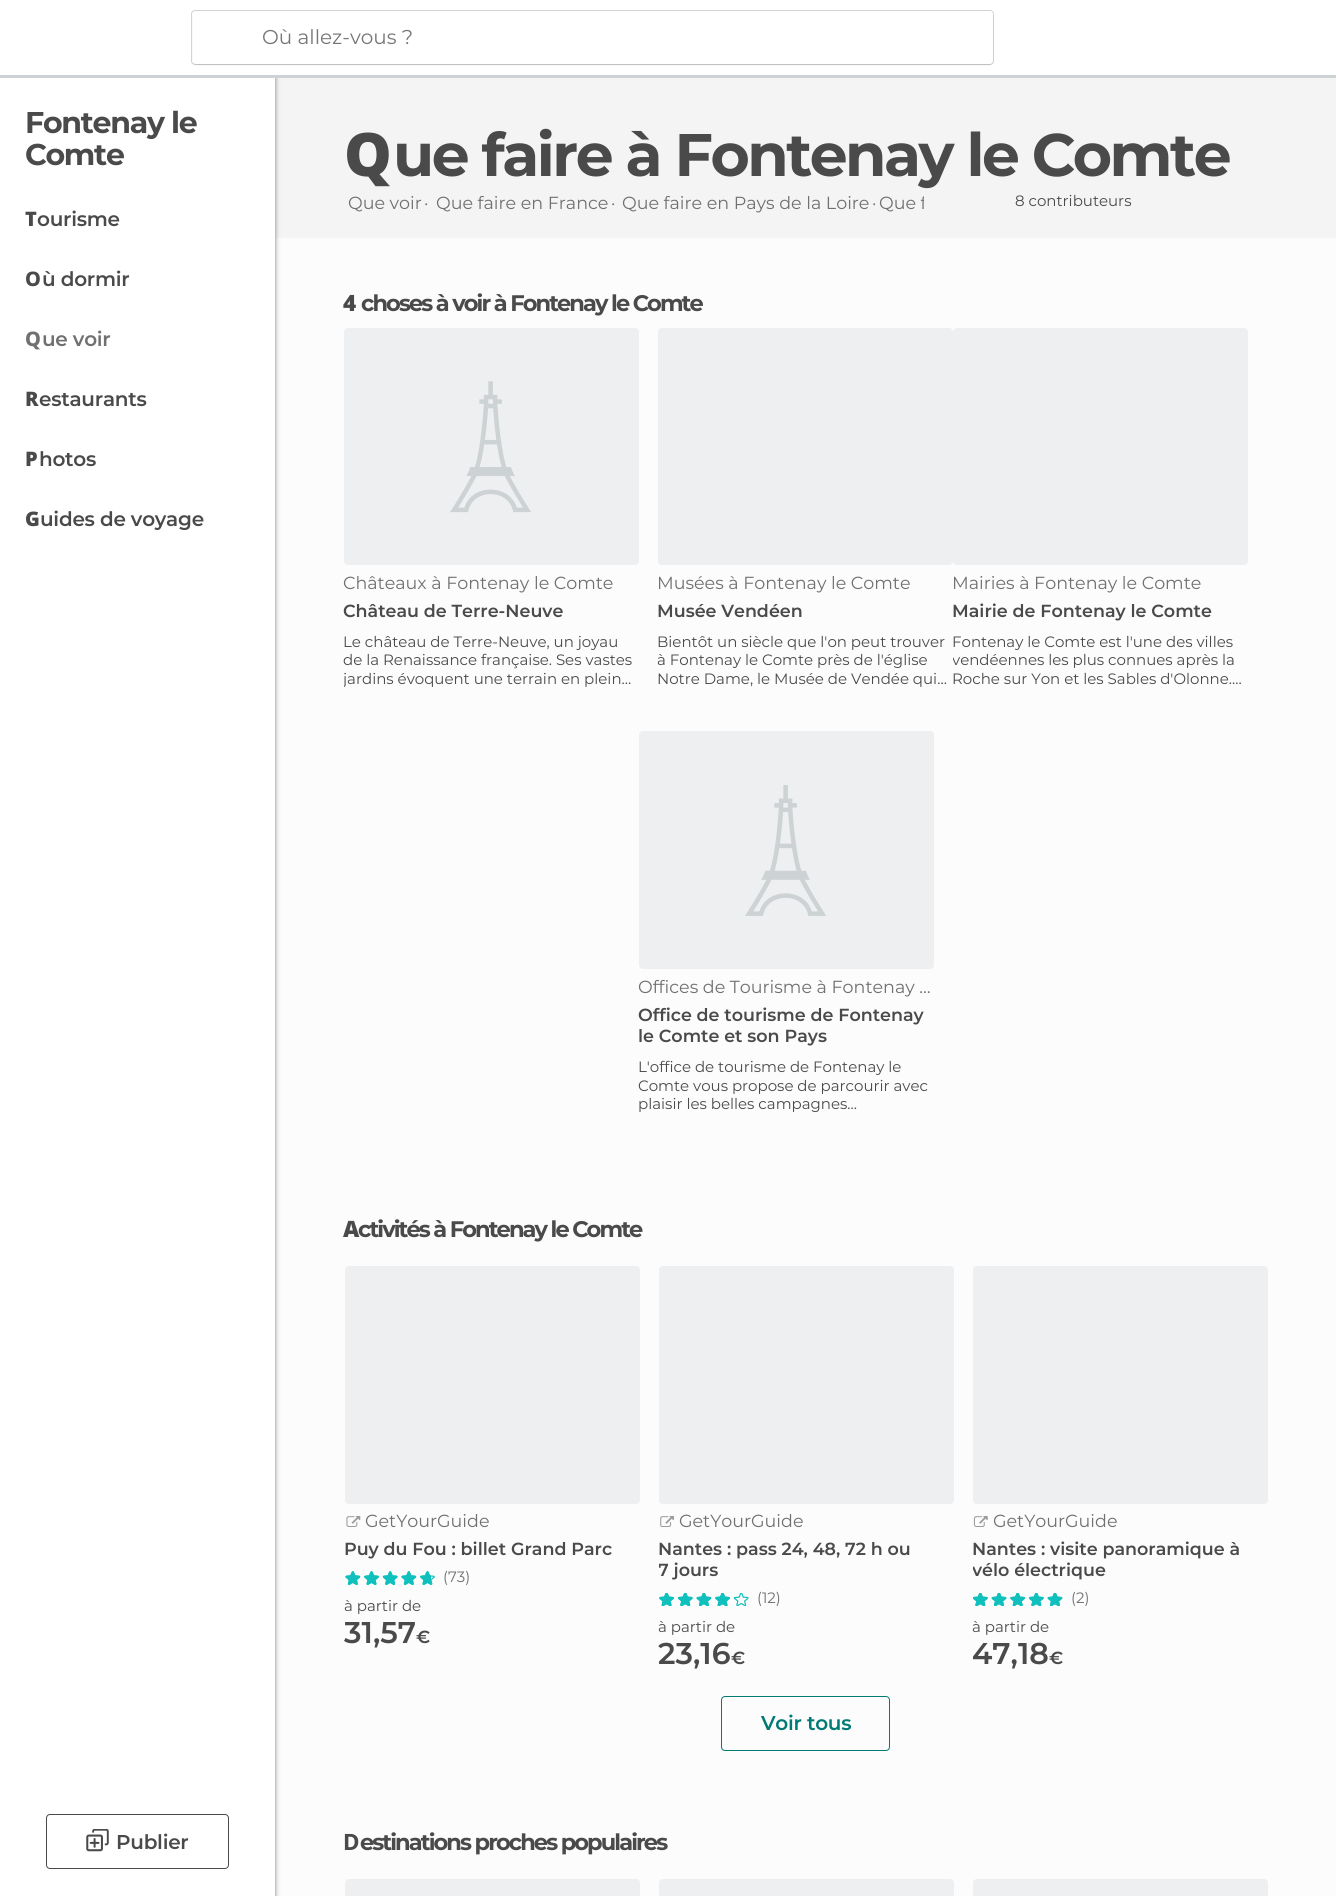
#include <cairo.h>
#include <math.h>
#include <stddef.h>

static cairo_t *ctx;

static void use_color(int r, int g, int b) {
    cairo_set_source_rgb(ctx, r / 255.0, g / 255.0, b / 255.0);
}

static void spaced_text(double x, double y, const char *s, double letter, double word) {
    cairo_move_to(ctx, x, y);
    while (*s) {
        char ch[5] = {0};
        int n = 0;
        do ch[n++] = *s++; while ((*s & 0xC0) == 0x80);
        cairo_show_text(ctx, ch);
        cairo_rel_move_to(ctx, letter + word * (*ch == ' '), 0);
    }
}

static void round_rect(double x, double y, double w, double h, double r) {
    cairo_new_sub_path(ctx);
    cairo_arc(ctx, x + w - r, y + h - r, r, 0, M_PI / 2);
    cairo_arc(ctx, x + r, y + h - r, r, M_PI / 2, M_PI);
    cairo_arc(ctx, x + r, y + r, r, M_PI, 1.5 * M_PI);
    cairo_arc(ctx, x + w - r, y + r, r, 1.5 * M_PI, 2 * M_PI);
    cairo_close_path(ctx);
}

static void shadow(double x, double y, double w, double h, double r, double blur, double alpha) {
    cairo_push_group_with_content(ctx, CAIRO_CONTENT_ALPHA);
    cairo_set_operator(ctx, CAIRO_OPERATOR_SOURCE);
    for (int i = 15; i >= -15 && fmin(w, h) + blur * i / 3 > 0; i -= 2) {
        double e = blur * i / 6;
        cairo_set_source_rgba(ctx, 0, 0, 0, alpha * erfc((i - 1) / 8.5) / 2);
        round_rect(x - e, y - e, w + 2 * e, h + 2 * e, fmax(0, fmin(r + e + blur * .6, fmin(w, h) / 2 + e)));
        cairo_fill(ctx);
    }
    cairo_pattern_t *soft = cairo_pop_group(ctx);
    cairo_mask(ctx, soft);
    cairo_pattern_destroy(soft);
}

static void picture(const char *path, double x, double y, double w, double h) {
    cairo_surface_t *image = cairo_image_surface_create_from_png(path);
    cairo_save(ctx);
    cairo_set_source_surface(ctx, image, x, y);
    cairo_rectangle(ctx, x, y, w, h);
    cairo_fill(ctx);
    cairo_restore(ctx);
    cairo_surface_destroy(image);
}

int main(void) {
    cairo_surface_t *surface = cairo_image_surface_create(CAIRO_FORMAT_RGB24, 1336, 1896);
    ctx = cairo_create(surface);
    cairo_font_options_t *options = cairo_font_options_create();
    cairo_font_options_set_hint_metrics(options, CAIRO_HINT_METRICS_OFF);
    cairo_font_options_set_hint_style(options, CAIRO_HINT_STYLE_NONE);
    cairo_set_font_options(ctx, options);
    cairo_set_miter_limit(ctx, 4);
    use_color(252, 252, 252);
    cairo_paint(ctx);
    use_color(244, 244, 244);
    cairo_rectangle(ctx, 275, 78, 1061, 160);
    cairo_fill(ctx);
    use_color(0, 0, 0);
    shadow(0, 3, 275, 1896, 0, 2.5, 0.5);
    use_color(255, 255, 255);
    cairo_rectangle(ctx, 0, 0, 1336, 75);
    cairo_fill(ctx);
    use_color(205, 210, 212);
    cairo_rectangle(ctx, 0, 75, 1336, 3);
    cairo_fill(ctx);
    round_rect(191.5, 10.5, 802, 54, 3.5);
    use_color(208, 212, 214);
    cairo_set_line_width(ctx, 1);
    cairo_stroke(ctx);
    cairo_save(ctx);
    cairo_set_fill_rule(ctx, CAIRO_FILL_RULE_EVEN_ODD);
    cairo_new_path(ctx);
    cairo_move_to(ctx, 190, 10);
    cairo_line_to(ctx, 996, 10);
    cairo_line_to(ctx, 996, 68);
    cairo_line_to(ctx, 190, 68);
    cairo_close_path(ctx);
    cairo_move_to(ctx, 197, 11);
    cairo_line_to(ctx, 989, 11);
    cairo_curve_to(ctx, 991, 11, 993, 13, 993, 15);
    cairo_line_to(ctx, 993, 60);
    cairo_curve_to(ctx, 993, 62, 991, 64, 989, 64);
    cairo_line_to(ctx, 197, 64);
    cairo_curve_to(ctx, 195, 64, 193, 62, 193, 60);
    cairo_line_to(ctx, 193, 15);
    cairo_curve_to(ctx, 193, 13, 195, 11, 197, 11);
    cairo_close_path(ctx);
    cairo_clip(ctx);
    use_color(13, 13, 13);
    shadow(193, 13, 800, 52, 4, 0.5, 0.1);
    cairo_restore(ctx);
    cairo_set_source_rgba(ctx, 1, 1, 1, 0.8);
    round_rect(193, 11, 800, 53, 4);
    cairo_fill(ctx);
    cairo_select_font_face(ctx, "Montserrat", CAIRO_FONT_SLANT_NORMAL, CAIRO_FONT_WEIGHT_NORMAL);
    cairo_set_font_size(ctx, 20);
    use_color(119, 119, 119);
    cairo_move_to(ctx, 262, 44);
    cairo_show_text(ctx, "Où allez-vous ?");
    use_color(255, 255, 255);
    cairo_rectangle(ctx, 0, 78, 275, 1818);
    cairo_fill(ctx);
    cairo_select_font_face(ctx, "Montserrat", CAIRO_FONT_SLANT_NORMAL, CAIRO_FONT_WEIGHT_BOLD);
    cairo_set_font_size(ctx, 30);
    use_color(74, 74, 74);
    spaced_text(25, 133, "Fontenay le", -1.25, 0);
    spaced_text(25, 165, "Comte", -1.25, 0);
    cairo_select_font_face(ctx, "Noto Sans Black", CAIRO_FONT_SLANT_NORMAL, CAIRO_FONT_WEIGHT_NORMAL);
    cairo_set_font_size(ctx, 20);
    spaced_text(25, 226, "T", -0.25, 0);
    cairo_select_font_face(ctx, "Montserrat SemiBold", CAIRO_FONT_SLANT_NORMAL, CAIRO_FONT_WEIGHT_NORMAL);
    spaced_text(37, 226, "ourisme", -0.25, 0);
    cairo_select_font_face(ctx, "Noto Sans ExtraBold", CAIRO_FONT_SLANT_NORMAL, CAIRO_FONT_WEIGHT_NORMAL);
    spaced_text(25, 286, "O", -0.25, 0);
    cairo_select_font_face(ctx, "Montserrat SemiBold", CAIRO_FONT_SLANT_NORMAL, CAIRO_FONT_WEIGHT_NORMAL);
    spaced_text(42, 286, "ù dormir", -0.25, 0);
    cairo_select_font_face(ctx, "Noto Sans ExtraBold", CAIRO_FONT_SLANT_NORMAL, CAIRO_FONT_WEIGHT_NORMAL);
    use_color(112, 112, 112);
    spaced_text(25, 346, "Q", -0.25, 0);
    cairo_select_font_face(ctx, "Montserrat SemiBold", CAIRO_FONT_SLANT_NORMAL, CAIRO_FONT_WEIGHT_NORMAL);
    spaced_text(42, 346, "ue voir", -0.25, 0);
    cairo_select_font_face(ctx, "Noto Sans Black", CAIRO_FONT_SLANT_NORMAL, CAIRO_FONT_WEIGHT_NORMAL);
    use_color(74, 74, 74);
    spaced_text(25, 406, "R", -0.25, 0);
    cairo_select_font_face(ctx, "Montserrat SemiBold", CAIRO_FONT_SLANT_NORMAL, CAIRO_FONT_WEIGHT_NORMAL);
    spaced_text(39, 406, "estaurants", -0.25, 0);
    cairo_select_font_face(ctx, "Noto Sans Black", CAIRO_FONT_SLANT_NORMAL, CAIRO_FONT_WEIGHT_NORMAL);
    spaced_text(25, 466, "P", -0.25, 0);
    cairo_select_font_face(ctx, "Montserrat SemiBold", CAIRO_FONT_SLANT_NORMAL, CAIRO_FONT_WEIGHT_NORMAL);
    spaced_text(39, 466, "hotos", -0.25, 0);
    cairo_select_font_face(ctx, "Noto Sans Black", CAIRO_FONT_SLANT_NORMAL, CAIRO_FONT_WEIGHT_NORMAL);
    spaced_text(25, 526, "G", -0.25, 0);
    cairo_select_font_face(ctx, "Montserrat SemiBold", CAIRO_FONT_SLANT_NORMAL, CAIRO_FONT_WEIGHT_NORMAL);
    spaced_text(40, 526, "uides de voyage", -0.25, 0);
    round_rect(46.5, 1814.5, 182, 54, 3.5);
    cairo_stroke(ctx);
    picture("img1.png", 86, 1829, 23, 23);
    spaced_text(116, 1849, "Publier", -0.25, 0);
    cairo_select_font_face(ctx, "Noto Sans Black", CAIRO_FONT_SLANT_NORMAL, CAIRO_FONT_WEIGHT_NORMAL);
    cairo_set_font_size(ctx, 60);
    spaced_text(344, 176, "Q", -2.5, 0);
    cairo_select_font_face(ctx, "Montserrat", CAIRO_FONT_SLANT_NORMAL, CAIRO_FONT_WEIGHT_BOLD);
    spaced_text(393, 176, "ue faire à Fontenay le Comte", -2.5, 0);
    cairo_select_font_face(ctx, "Montserrat", CAIRO_FONT_SLANT_NORMAL, CAIRO_FONT_WEIGHT_NORMAL);
    cairo_set_font_size(ctx, 17.5);
    use_color(112, 112, 112);
    cairo_move_to(ctx, 348, 209);
    cairo_show_text(ctx, "Que voir");
    cairo_move_to(ctx, 424, 209);
    cairo_show_text(ctx, "·");
    cairo_move_to(ctx, 436, 209);
    cairo_show_text(ctx, "Que faire en France");
    cairo_move_to(ctx, 611, 209);
    cairo_show_text(ctx, "·");
    cairo_move_to(ctx, 622, 209);
    cairo_show_text(ctx, "Que faire en Pays de la Loire");
    cairo_move_to(ctx, 872, 209);
    cairo_show_text(ctx, "·");
    cairo_save(ctx);
    cairo_rectangle(ctx, 349, 189, 575, 27);
    cairo_clip(ctx);
    cairo_move_to(ctx, 879, 209);
    cairo_show_text(ctx, "Que f");
    cairo_restore(ctx);
    cairo_set_font_size(ctx, 15);
    use_color(74, 74, 74);
    cairo_move_to(ctx, 1015, 206);
    cairo_show_text(ctx, "8 contributeurs");
    cairo_select_font_face(ctx, "Noto Sans Black", CAIRO_FONT_SLANT_NORMAL, CAIRO_FONT_WEIGHT_NORMAL);
    cairo_set_font_size(ctx, 22.5);
    spaced_text(343, 311, "4", -1.9, 0);
    cairo_select_font_face(ctx, "Montserrat", CAIRO_FONT_SLANT_NORMAL, CAIRO_FONT_WEIGHT_BOLD);
    spaced_text(361, 311, "choses à voir à Fontenay le Comte", -1.9, 0);
    use_color(238, 239, 240);
    round_rect(344, 328, 295, 237, 4);
    cairo_fill(ctx);
    picture("img2.png", 450, 381, 81, 132);
    cairo_select_font_face(ctx, "Montserrat", CAIRO_FONT_SLANT_NORMAL, CAIRO_FONT_WEIGHT_NORMAL);
    cairo_set_font_size(ctx, 17.5);
    use_color(112, 112, 112);
    cairo_move_to(ctx, 343, 589);
    cairo_show_text(ctx, "Châteaux à Fontenay le Comte");
    cairo_select_font_face(ctx, "Montserrat SemiBold", CAIRO_FONT_SLANT_NORMAL, CAIRO_FONT_WEIGHT_NORMAL);
    use_color(74, 74, 74);
    cairo_move_to(ctx, 343, 617);
    cairo_show_text(ctx, "Château de Terre-Neuve");
    cairo_select_font_face(ctx, "Montserrat", CAIRO_FONT_SLANT_NORMAL, CAIRO_FONT_WEIGHT_NORMAL);
    cairo_set_font_size(ctx, 15);
    cairo_move_to(ctx, 343, 647);
    cairo_show_text(ctx, "Le château de Terre-Neuve, un joyau");
    cairo_move_to(ctx, 343, 665);
    cairo_show_text(ctx, "de la Renaissance française. Ses vastes");
    cairo_save(ctx);
    cairo_rectangle(ctx, 344, 631, 295, 57);
    cairo_clip(ctx);
    cairo_move_to(ctx, 343, 684);
    cairo_show_text(ctx, "jardins évoquent une terrain en plein…");
    cairo_restore(ctx);
    use_color(238, 239, 240);
    round_rect(658, 328, 295, 237, 4);
    cairo_fill(ctx);
    cairo_set_font_size(ctx, 17.5);
    use_color(112, 112, 112);
    cairo_move_to(ctx, 657, 589);
    cairo_show_text(ctx, "Musées à Fontenay le Comte");
    cairo_select_font_face(ctx, "Montserrat SemiBold", CAIRO_FONT_SLANT_NORMAL, CAIRO_FONT_WEIGHT_NORMAL);
    use_color(74, 74, 74);
    cairo_move_to(ctx, 657, 617);
    cairo_show_text(ctx, "Musée Vendéen");
    cairo_select_font_face(ctx, "Montserrat", CAIRO_FONT_SLANT_NORMAL, CAIRO_FONT_WEIGHT_NORMAL);
    cairo_set_font_size(ctx, 15);
    cairo_move_to(ctx, 657, 647);
    cairo_show_text(ctx, "Bientôt un siècle que l'on peut trouver");
    cairo_move_to(ctx, 657, 665);
    cairo_show_text(ctx, "à Fontenay le Comte près de l'église");
    cairo_move_to(ctx, 657, 684);
    cairo_show_text(ctx, "Notre Dame, le Musée de Vendée qui…");
    use_color(238, 239, 240);
    round_rect(953, 328, 295, 237, 4);
    cairo_fill(ctx);
    cairo_set_font_size(ctx, 17.5);
    use_color(112, 112, 112);
    cairo_move_to(ctx, 952, 589);
    cairo_show_text(ctx, "Mairies à Fontenay le Comte");
    cairo_select_font_face(ctx, "Montserrat SemiBold", CAIRO_FONT_SLANT_NORMAL, CAIRO_FONT_WEIGHT_NORMAL);
    use_color(74, 74, 74);
    cairo_move_to(ctx, 952, 617);
    cairo_show_text(ctx, "Mairie de Fontenay le Comte");
    cairo_select_font_face(ctx, "Montserrat", CAIRO_FONT_SLANT_NORMAL, CAIRO_FONT_WEIGHT_NORMAL);
    cairo_set_font_size(ctx, 15);
    cairo_move_to(ctx, 952, 647);
    cairo_show_text(ctx, "Fontenay le Comte est l'une des villes");
    cairo_save(ctx);
    cairo_rectangle(ctx, 953, 631, 295, 57);
    cairo_clip(ctx);
    cairo_move_to(ctx, 952, 665);
    cairo_show_text(ctx, "vendéennes les plus connues après la");
    cairo_restore(ctx);
    cairo_move_to(ctx, 952, 684);
    cairo_show_text(ctx, "Roche sur Yon et les Sables d'Olonne.…");
    use_color(238, 239, 240);
    round_rect(639, 731, 295, 238, 4);
    cairo_fill(ctx);
    picture("img3.png", 745, 785, 81, 131);
    cairo_set_font_size(ctx, 17.5);
    use_color(112, 112, 112);
    cairo_move_to(ctx, 638, 993);
    cairo_show_text(ctx, "Offices de Tourisme à Fontenay …");
    cairo_select_font_face(ctx, "Montserrat SemiBold", CAIRO_FONT_SLANT_NORMAL, CAIRO_FONT_WEIGHT_NORMAL);
    use_color(74, 74, 74);
    cairo_move_to(ctx, 638, 1021);
    cairo_show_text(ctx, "Office de tourisme de Fontenay");
    cairo_move_to(ctx, 638, 1042);
    cairo_show_text(ctx, "le Comte et son Pays");
    cairo_select_font_face(ctx, "Montserrat", CAIRO_FONT_SLANT_NORMAL, CAIRO_FONT_WEIGHT_NORMAL);
    cairo_set_font_size(ctx, 15);
    cairo_move_to(ctx, 638, 1072);
    cairo_show_text(ctx, "L'office de tourisme de Fontenay le");
    cairo_move_to(ctx, 638, 1091);
    cairo_show_text(ctx, "Comte vous propose de parcourir avec");
    cairo_move_to(ctx, 638, 1109);
    cairo_show_text(ctx, "plaisir les belles campagnes…");
    cairo_select_font_face(ctx, "Noto Sans Black", CAIRO_FONT_SLANT_NORMAL, CAIRO_FONT_WEIGHT_NORMAL);
    cairo_set_font_size(ctx, 22.5);
    spaced_text(343, 1237, "A", -1.9, 0);
    cairo_select_font_face(ctx, "Montserrat", CAIRO_FONT_SLANT_NORMAL, CAIRO_FONT_WEIGHT_BOLD);
    spaced_text(358, 1237, "ctivités à Fontenay le Comte", -1.9, 0);
    use_color(238, 239, 240);
    round_rect(345, 1266, 295, 238, 4);
    cairo_fill(ctx);
    picture("img4.png", 346, 1516, 15, 11);
    cairo_select_font_face(ctx, "Montserrat", CAIRO_FONT_SLANT_NORMAL, CAIRO_FONT_WEIGHT_NORMAL);
    cairo_set_font_size(ctx, 17.5);
    use_color(112, 112, 112);
    cairo_move_to(ctx, 365, 1527);
    cairo_show_text(ctx, "GetYourGuide");
    cairo_select_font_face(ctx, "Montserrat SemiBold", CAIRO_FONT_SLANT_NORMAL, CAIRO_FONT_WEIGHT_NORMAL);
    use_color(74, 74, 74);
    cairo_move_to(ctx, 344, 1555);
    cairo_show_text(ctx, "Puy du Fou : billet Grand Parc");
    picture("img5.png", 345, 1571, 90, 14);
    picture("img6.png", 345, 1571, 86, 14);
    cairo_select_font_face(ctx, "Montserrat", CAIRO_FONT_SLANT_NORMAL, CAIRO_FONT_WEIGHT_NORMAL);
    cairo_set_font_size(ctx, 15);
    use_color(112, 112, 112);
    cairo_move_to(ctx, 443, 1582);
    cairo_show_text(ctx, "(73)");
    use_color(74, 74, 74);
    cairo_move_to(ctx, 344, 1611);
    cairo_show_text(ctx, "à partir de");
    cairo_select_font_face(ctx, "Montserrat SemiBold", CAIRO_FONT_SLANT_NORMAL, CAIRO_FONT_WEIGHT_NORMAL);
    cairo_set_font_size(ctx, 30);
    cairo_move_to(ctx, 344, 1643);
    cairo_show_text(ctx, "31,57");
    cairo_set_font_size(ctx, 17.5);
    cairo_move_to(ctx, 416, 1643);
    cairo_show_text(ctx, "€");
    use_color(238, 239, 240);
    round_rect(659, 1266, 295, 238, 4);
    cairo_fill(ctx);
    picture("img7.png", 660, 1516, 14, 11);
    cairo_select_font_face(ctx, "Montserrat", CAIRO_FONT_SLANT_NORMAL, CAIRO_FONT_WEIGHT_NORMAL);
    use_color(112, 112, 112);
    cairo_move_to(ctx, 679, 1527);
    cairo_show_text(ctx, "GetYourGuide");
    cairo_select_font_face(ctx, "Montserrat SemiBold", CAIRO_FONT_SLANT_NORMAL, CAIRO_FONT_WEIGHT_NORMAL);
    use_color(74, 74, 74);
    cairo_move_to(ctx, 658, 1555);
    cairo_show_text(ctx, "Nantes : pass 24, 48, 72 h ou");
    cairo_save(ctx);
    round_rect(659, 1266, 295, 409, 4);
    cairo_clip(ctx);
    cairo_move_to(ctx, 658, 1576);
    cairo_show_text(ctx, "7 jours");
    cairo_restore(ctx);
    picture("img8.png", 659, 1593, 90, 13);
    picture("img9.png", 659, 1593, 76, 13);
    cairo_select_font_face(ctx, "Montserrat", CAIRO_FONT_SLANT_NORMAL, CAIRO_FONT_WEIGHT_NORMAL);
    cairo_set_font_size(ctx, 15);
    use_color(112, 112, 112);
    cairo_move_to(ctx, 757, 1603);
    cairo_show_text(ctx, "(12)");
    use_color(74, 74, 74);
    cairo_move_to(ctx, 658, 1632);
    cairo_show_text(ctx, "à partir de");
    cairo_select_font_face(ctx, "Montserrat SemiBold", CAIRO_FONT_SLANT_NORMAL, CAIRO_FONT_WEIGHT_NORMAL);
    cairo_set_font_size(ctx, 30);
    cairo_move_to(ctx, 658, 1664);
    cairo_show_text(ctx, "23,16");
    cairo_set_font_size(ctx, 17.5);
    cairo_move_to(ctx, 731, 1664);
    cairo_show_text(ctx, "€");
    use_color(238, 239, 240);
    round_rect(973, 1266, 295, 238, 4);
    cairo_fill(ctx);
    picture("img10.png", 973, 1516, 15, 11);
    cairo_select_font_face(ctx, "Montserrat", CAIRO_FONT_SLANT_NORMAL, CAIRO_FONT_WEIGHT_NORMAL);
    use_color(112, 112, 112);
    cairo_move_to(ctx, 993, 1527);
    cairo_show_text(ctx, "GetYourGuide");
    cairo_select_font_face(ctx, "Montserrat SemiBold", CAIRO_FONT_SLANT_NORMAL, CAIRO_FONT_WEIGHT_NORMAL);
    use_color(74, 74, 74);
    cairo_move_to(ctx, 972, 1555);
    cairo_show_text(ctx, "Nantes : visite panoramique à");
    cairo_save(ctx);
    round_rect(973, 1266, 295, 409, 4);
    cairo_clip(ctx);
    cairo_move_to(ctx, 972, 1576);
    cairo_show_text(ctx, "vélo électrique");
    cairo_restore(ctx);
    picture("img11.png", 973, 1593, 90, 13);
    picture("img12.png", 973, 1593, 90, 13);
    cairo_select_font_face(ctx, "Montserrat", CAIRO_FONT_SLANT_NORMAL, CAIRO_FONT_WEIGHT_NORMAL);
    cairo_set_font_size(ctx, 15);
    use_color(112, 112, 112);
    cairo_move_to(ctx, 1071, 1603);
    cairo_show_text(ctx, "(2)");
    use_color(74, 74, 74);
    cairo_move_to(ctx, 972, 1632);
    cairo_show_text(ctx, "à partir de");
    cairo_select_font_face(ctx, "Montserrat SemiBold", CAIRO_FONT_SLANT_NORMAL, CAIRO_FONT_WEIGHT_NORMAL);
    cairo_set_font_size(ctx, 30);
    cairo_move_to(ctx, 972, 1664);
    cairo_show_text(ctx, "47,18");
    cairo_set_font_size(ctx, 17.5);
    cairo_move_to(ctx, 1049, 1664);
    cairo_show_text(ctx, "€");
    round_rect(721.5, 1696.5, 168, 54, 3.5);
    use_color(0, 122, 117);
    cairo_stroke(ctx);
    cairo_set_font_size(ctx, 20);
    spaced_text(761, 1730, "Voir tous", -0.25, 0);
    cairo_select_font_face(ctx, "Noto Sans", CAIRO_FONT_SLANT_NORMAL, CAIRO_FONT_WEIGHT_BOLD);
    cairo_set_font_size(ctx, 22.5);
    use_color(74, 74, 74);
    spaced_text(343, 1850, "D", -1.9, 0);
    cairo_select_font_face(ctx, "Montserrat", CAIRO_FONT_SLANT_NORMAL, CAIRO_FONT_WEIGHT_BOLD);
    spaced_text(360, 1850, "estinations proches populaires", -1.9, 0);
    use_color(238, 239, 240);
    round_rect(345, 1879, 295, 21, 4);
    cairo_fill(ctx);
    round_rect(659, 1879, 295, 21, 4);
    cairo_fill(ctx);
    round_rect(973, 1879, 295, 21, 4);
    cairo_fill(ctx);
    cairo_surface_write_to_png(surface, "result.png");
    cairo_font_options_destroy(options);
    cairo_destroy(ctx);
    cairo_surface_destroy(surface);
    return 0;
}
